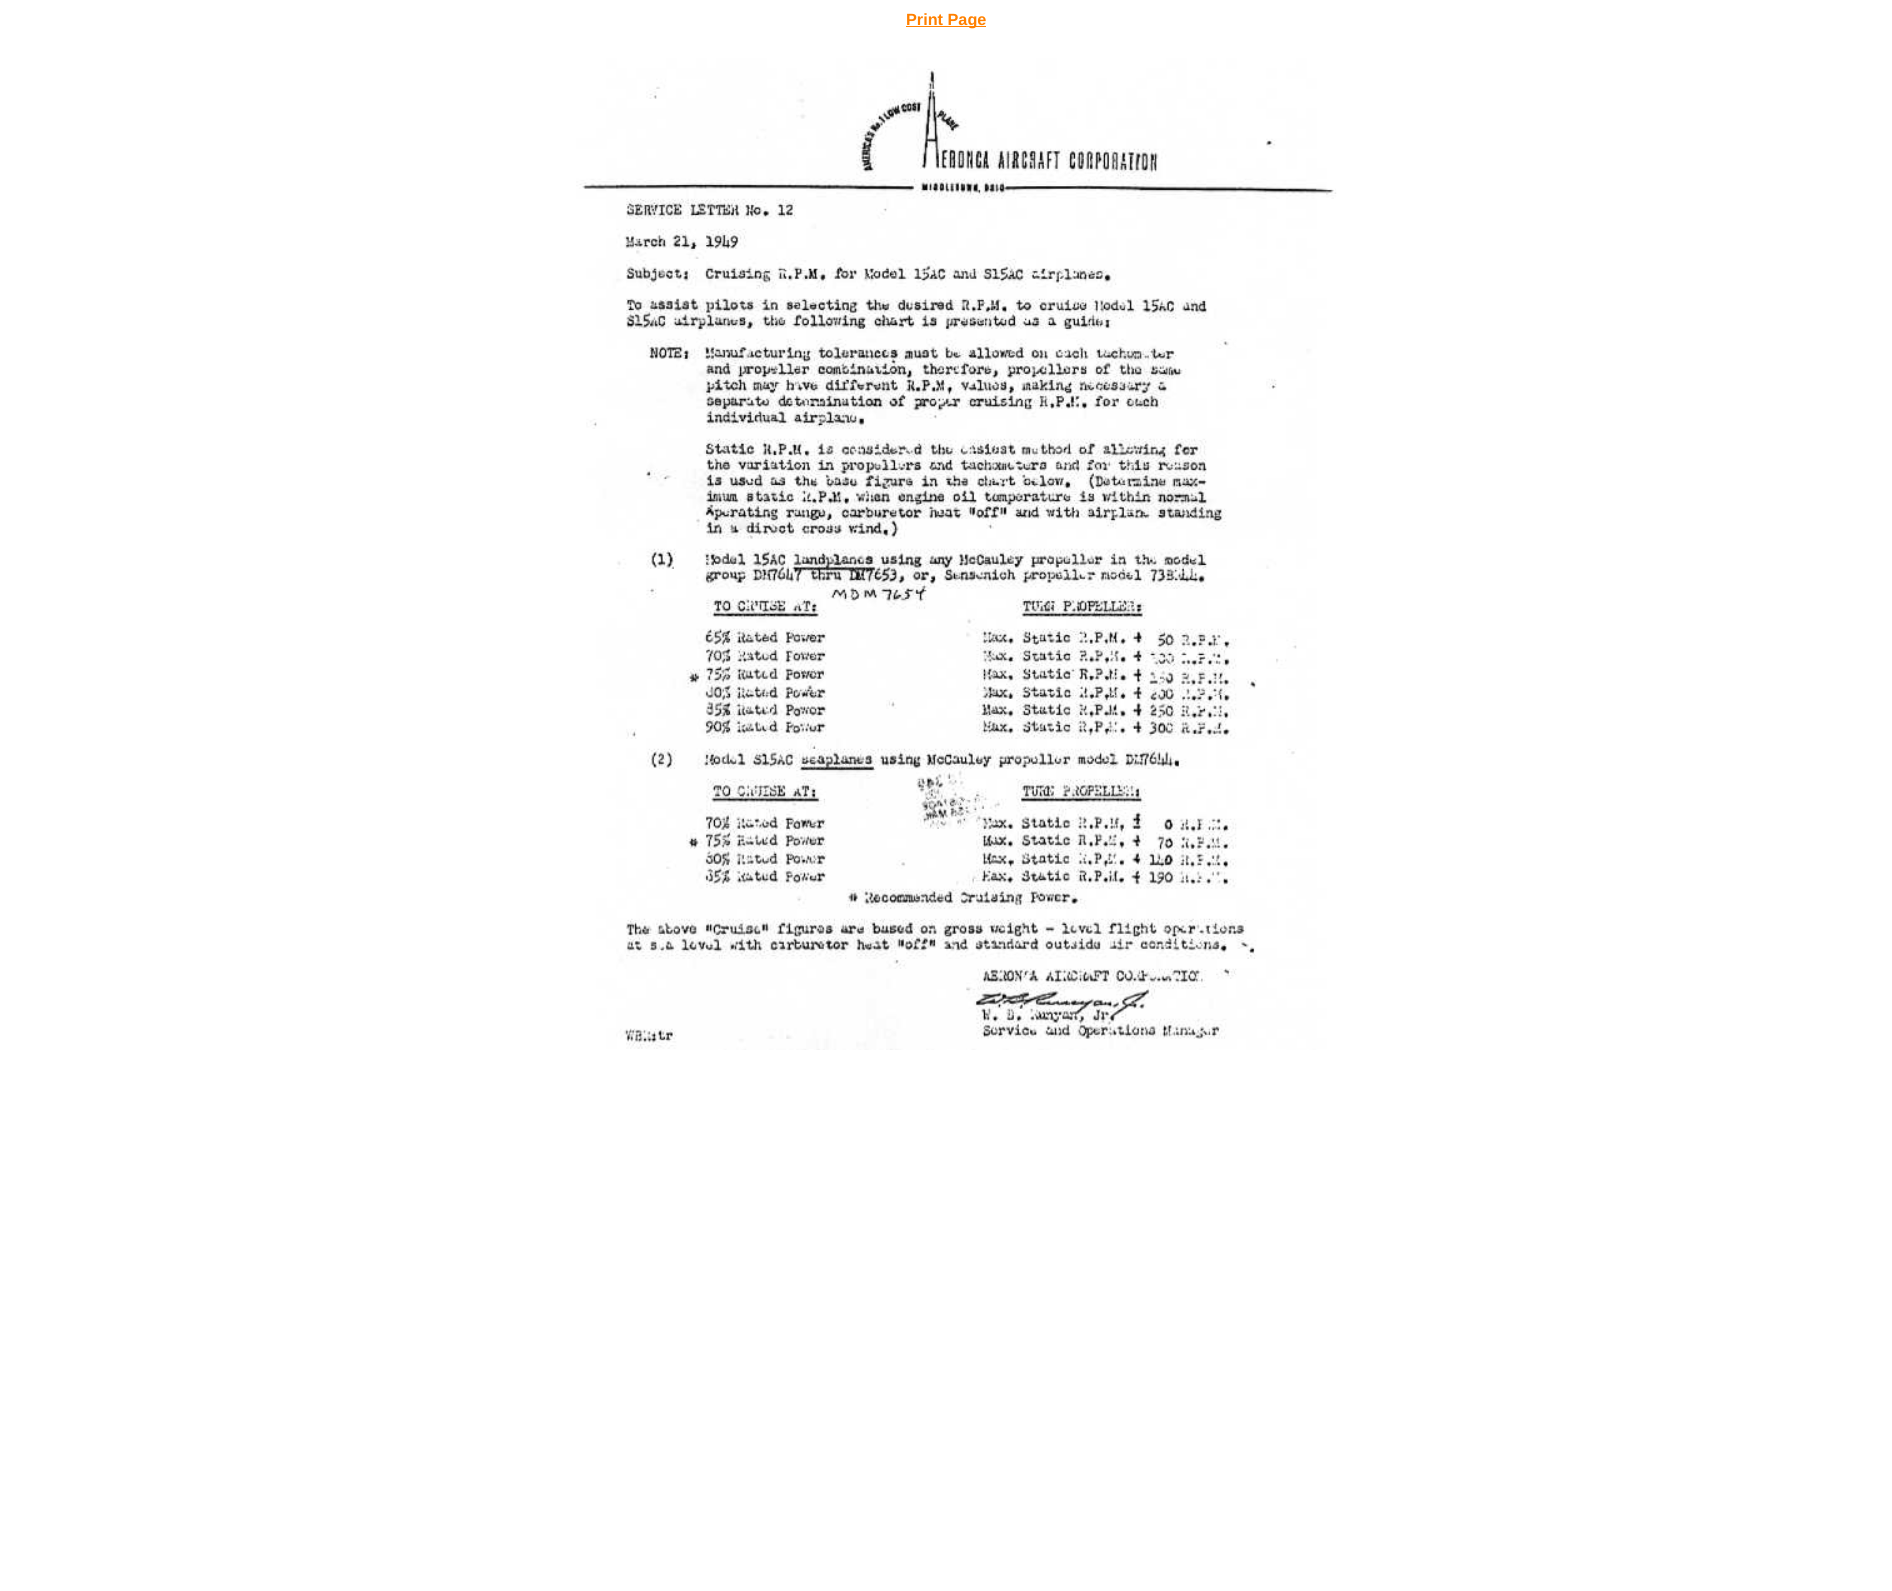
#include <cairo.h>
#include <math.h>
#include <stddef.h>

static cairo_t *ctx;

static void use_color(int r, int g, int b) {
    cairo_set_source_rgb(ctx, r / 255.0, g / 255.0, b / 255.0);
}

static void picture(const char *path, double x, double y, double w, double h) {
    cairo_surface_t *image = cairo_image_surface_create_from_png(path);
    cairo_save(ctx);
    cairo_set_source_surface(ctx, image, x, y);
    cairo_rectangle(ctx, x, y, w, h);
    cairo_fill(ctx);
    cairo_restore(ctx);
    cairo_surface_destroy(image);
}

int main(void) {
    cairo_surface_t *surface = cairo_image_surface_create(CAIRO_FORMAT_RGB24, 1892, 1591);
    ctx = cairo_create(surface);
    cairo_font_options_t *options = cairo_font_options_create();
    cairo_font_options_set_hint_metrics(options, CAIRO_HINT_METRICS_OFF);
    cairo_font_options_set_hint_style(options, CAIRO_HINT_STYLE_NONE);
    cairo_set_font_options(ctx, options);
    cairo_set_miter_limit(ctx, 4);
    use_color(255, 255, 255);
    cairo_paint(ctx);
    use_color(255, 128, 0);
    cairo_rectangle(ctx, 906, 26, 80, 1);
    cairo_fill(ctx);
    cairo_select_font_face(ctx, "Liberation Sans", CAIRO_FONT_SLANT_NORMAL, CAIRO_FONT_WEIGHT_BOLD);
    cairo_set_font_size(ctx, 16.25);
    cairo_move_to(ctx, 906, 25);
    cairo_show_text(ctx, "Print Page");
    picture("img1.png", 576, 28, 761, 1022);
    cairo_surface_write_to_png(surface, "result.png");
    cairo_font_options_destroy(options);
    cairo_destroy(ctx);
    cairo_surface_destroy(surface);
    return 0;
}
